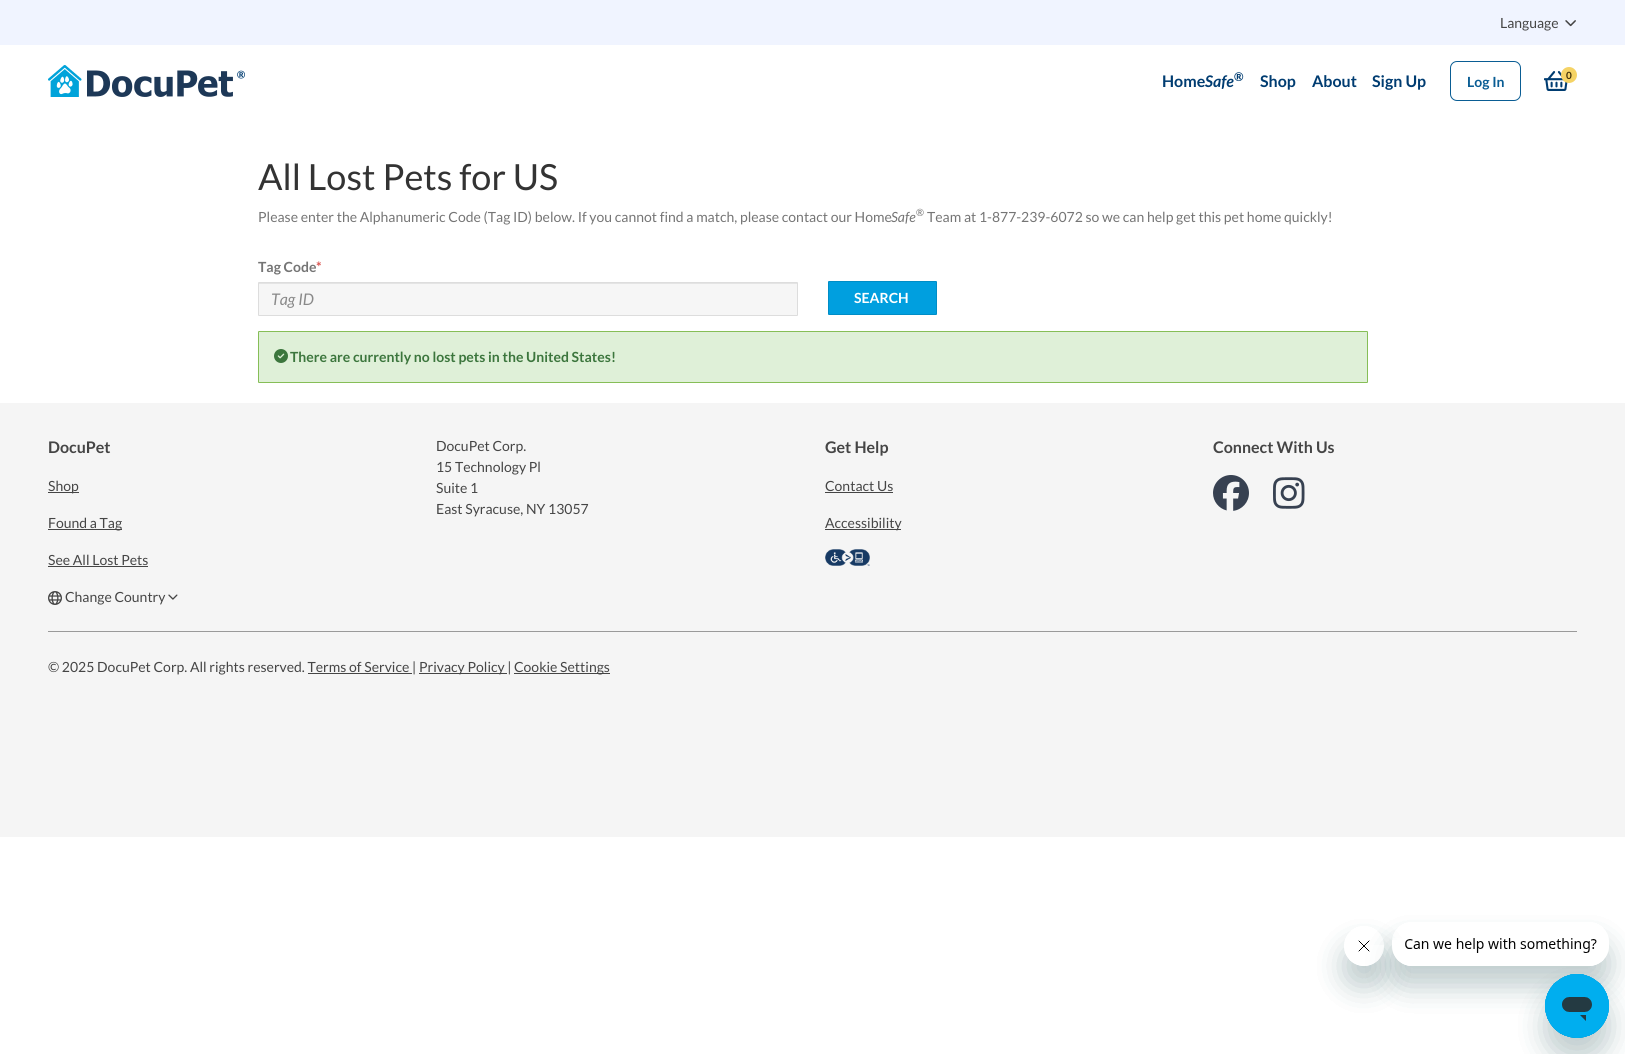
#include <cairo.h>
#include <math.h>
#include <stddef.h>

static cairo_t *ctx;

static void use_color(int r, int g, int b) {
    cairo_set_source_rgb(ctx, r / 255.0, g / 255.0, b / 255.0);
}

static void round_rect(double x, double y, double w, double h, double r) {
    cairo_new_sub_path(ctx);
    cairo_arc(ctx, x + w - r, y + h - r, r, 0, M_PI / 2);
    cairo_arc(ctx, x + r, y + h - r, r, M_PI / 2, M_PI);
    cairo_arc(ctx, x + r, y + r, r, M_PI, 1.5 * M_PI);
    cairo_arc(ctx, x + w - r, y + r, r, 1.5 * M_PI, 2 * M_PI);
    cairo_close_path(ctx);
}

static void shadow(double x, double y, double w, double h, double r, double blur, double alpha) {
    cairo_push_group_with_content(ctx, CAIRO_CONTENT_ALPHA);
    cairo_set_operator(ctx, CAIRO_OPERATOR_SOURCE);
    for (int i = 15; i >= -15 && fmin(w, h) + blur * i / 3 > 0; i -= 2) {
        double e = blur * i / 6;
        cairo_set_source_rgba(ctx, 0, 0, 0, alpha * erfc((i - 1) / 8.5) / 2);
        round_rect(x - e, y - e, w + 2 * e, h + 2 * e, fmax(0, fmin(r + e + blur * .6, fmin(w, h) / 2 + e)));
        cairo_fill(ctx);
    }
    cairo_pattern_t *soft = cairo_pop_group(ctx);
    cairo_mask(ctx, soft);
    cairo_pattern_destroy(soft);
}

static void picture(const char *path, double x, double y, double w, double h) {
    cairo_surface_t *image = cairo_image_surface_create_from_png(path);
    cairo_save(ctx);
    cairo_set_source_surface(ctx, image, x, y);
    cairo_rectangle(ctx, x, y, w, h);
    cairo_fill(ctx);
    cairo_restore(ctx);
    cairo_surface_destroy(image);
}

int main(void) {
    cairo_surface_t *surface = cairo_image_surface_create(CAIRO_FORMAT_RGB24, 1625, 1054);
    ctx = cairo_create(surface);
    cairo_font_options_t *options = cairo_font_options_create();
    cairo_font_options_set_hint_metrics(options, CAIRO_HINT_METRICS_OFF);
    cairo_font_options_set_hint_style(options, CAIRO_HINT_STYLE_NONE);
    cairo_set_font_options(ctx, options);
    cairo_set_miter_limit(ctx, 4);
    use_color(255, 255, 255);
    cairo_paint(ctx);
    use_color(240, 244, 255);
    cairo_rectangle(ctx, 0, 0, 1625, 45);
    cairo_fill(ctx);
    cairo_select_font_face(ctx, "Lato", CAIRO_FONT_SLANT_NORMAL, CAIRO_FONT_WEIGHT_NORMAL);
    cairo_set_font_size(ctx, 14);
    use_color(69, 69, 69);
    cairo_move_to(ctx, 1500, 28);
    cairo_show_text(ctx, "Language");
    picture("img1.png", 1565, 20, 11, 7);
    picture("img2.png", 48, 65, 197, 32);
    cairo_select_font_face(ctx, "Lato", CAIRO_FONT_SLANT_NORMAL, CAIRO_FONT_WEIGHT_BOLD);
    cairo_set_font_size(ctx, 16);
    use_color(0, 60, 113);
    cairo_move_to(ctx, 1162, 87);
    cairo_show_text(ctx, "Home");
    cairo_select_font_face(ctx, "Lato", CAIRO_FONT_SLANT_ITALIC, CAIRO_FONT_WEIGHT_BOLD);
    cairo_move_to(ctx, 1205, 87);
    cairo_show_text(ctx, "Safe");
    cairo_select_font_face(ctx, "Lato", CAIRO_FONT_SLANT_NORMAL, CAIRO_FONT_WEIGHT_BOLD);
    cairo_set_font_size(ctx, 12);
    cairo_move_to(ctx, 1234, 81);
    cairo_show_text(ctx, "®");
    cairo_set_font_size(ctx, 16);
    cairo_move_to(ctx, 1260, 87);
    cairo_show_text(ctx, "Shop");
    cairo_move_to(ctx, 1312, 87);
    cairo_show_text(ctx, "About");
    cairo_move_to(ctx, 1372, 87);
    cairo_show_text(ctx, "Sign Up");
    round_rect(1450.5, 61.5, 70, 39, 6.5);
    use_color(10, 93, 148);
    cairo_set_line_width(ctx, 1);
    cairo_stroke(ctx);
    cairo_set_font_size(ctx, 14);
    cairo_move_to(ctx, 1467, 87);
    cairo_show_text(ctx, "Log In");
    picture("img3.png", 1544, 71, 24, 20);
    use_color(245, 211, 101);
    cairo_arc(ctx, 1569, 75, 8, 0, 2 * M_PI);
    cairo_fill(ctx);
    cairo_set_font_size(ctx, 10);
    use_color(63, 48, 9);
    cairo_move_to(ctx, 1566, 79);
    cairo_show_text(ctx, "0");
    cairo_select_font_face(ctx, "Lato", CAIRO_FONT_SLANT_NORMAL, CAIRO_FONT_WEIGHT_NORMAL);
    cairo_set_font_size(ctx, 36);
    use_color(51, 51, 51);
    cairo_move_to(ctx, 258, 190);
    cairo_show_text(ctx, "All Lost Pets for US");
    cairo_set_font_size(ctx, 14);
    use_color(117, 117, 117);
    cairo_move_to(ctx, 258, 222);
    cairo_show_text(ctx, "Please enter the Alphanumeric Code (Tag ID) below. If you cannot find a match, please contact our Home");
    cairo_select_font_face(ctx, "Lato", CAIRO_FONT_SLANT_ITALIC, CAIRO_FONT_WEIGHT_NORMAL);
    cairo_move_to(ctx, 891, 222);
    cairo_show_text(ctx, "Safe");
    cairo_select_font_face(ctx, "Lato", CAIRO_FONT_SLANT_NORMAL, CAIRO_FONT_WEIGHT_NORMAL);
    cairo_set_font_size(ctx, 10);
    cairo_move_to(ctx, 916, 216);
    cairo_show_text(ctx, "®");
    cairo_set_font_size(ctx, 14);
    cairo_move_to(ctx, 927, 222);
    cairo_show_text(ctx, "Team at 1-877-239-6072 so we can help get this pet home quickly!");
    cairo_select_font_face(ctx, "Lato", CAIRO_FONT_SLANT_NORMAL, CAIRO_FONT_WEIGHT_BOLD);
    cairo_move_to(ctx, 258, 272);
    cairo_show_text(ctx, "Tag Code");
    use_color(217, 83, 79);
    cairo_move_to(ctx, 316, 272);
    cairo_show_text(ctx, "*");
    use_color(246, 246, 246);
    round_rect(258, 282, 540, 34, 1);
    cairo_fill(ctx);
    use_color(228, 228, 228);
    cairo_rectangle(ctx, 259, 283, 538, 1);
    cairo_fill(ctx);
    round_rect(258.5, 282.5, 539, 33, 0.5);
    use_color(221, 221, 221);
    cairo_stroke(ctx);
    cairo_select_font_face(ctx, "Lato", CAIRO_FONT_SLANT_ITALIC, CAIRO_FONT_WEIGHT_NORMAL);
    cairo_set_font_size(ctx, 16);
    use_color(137, 137, 137);
    cairo_move_to(ctx, 271, 305);
    cairo_show_text(ctx, "Tag ID");
    use_color(0, 159, 223);
    round_rect(828.5, 281.5, 108, 33, 0.5);
    cairo_fill_preserve(ctx);
    use_color(0, 141, 198);
    cairo_stroke(ctx);
    cairo_select_font_face(ctx, "Lato", CAIRO_FONT_SLANT_NORMAL, CAIRO_FONT_WEIGHT_BOLD);
    cairo_set_font_size(ctx, 14);
    use_color(255, 255, 255);
    cairo_move_to(ctx, 854, 303);
    cairo_show_text(ctx, "SEARCH");
    use_color(223, 240, 216);
    round_rect(258.5, 331.5, 1109, 51, 0.5);
    cairo_fill_preserve(ctx);
    use_color(134, 190, 87);
    cairo_stroke(ctx);
    picture("img4.png", 274, 349, 14, 14);
    use_color(60, 118, 61);
    cairo_move_to(ctx, 290, 362);
    cairo_show_text(ctx, "There are currently no lost pets in the United States!");
    use_color(245, 245, 245);
    cairo_rectangle(ctx, 0, 403, 1625, 434);
    cairo_fill(ctx);
    cairo_set_font_size(ctx, 16);
    use_color(69, 69, 69);
    cairo_move_to(ctx, 48, 453);
    cairo_show_text(ctx, "DocuPet");
    cairo_rectangle(ctx, 48, 492, 31, 1);
    cairo_fill(ctx);
    cairo_select_font_face(ctx, "Lato", CAIRO_FONT_SLANT_NORMAL, CAIRO_FONT_WEIGHT_NORMAL);
    cairo_set_font_size(ctx, 14);
    cairo_move_to(ctx, 48, 491);
    cairo_show_text(ctx, "Shop");
    cairo_rectangle(ctx, 48, 529, 74, 1);
    cairo_fill(ctx);
    cairo_move_to(ctx, 48, 528);
    cairo_show_text(ctx, "Found a Tag");
    cairo_move_to(ctx, 48, 565);
    cairo_show_text(ctx, "See All Lost Pets");
    cairo_rectangle(ctx, 48, 566, 100, 1);
    cairo_fill(ctx);
    picture("img5.png", 48, 591, 14, 14);
    cairo_move_to(ctx, 65, 602);
    cairo_show_text(ctx, "Change Country");
    picture("img6.png", 168, 594, 10, 6);
    cairo_move_to(ctx, 436, 451);
    cairo_show_text(ctx, "DocuPet Corp.");
    cairo_move_to(ctx, 436, 472);
    cairo_show_text(ctx, "15 Technology Pl");
    cairo_move_to(ctx, 436, 493);
    cairo_show_text(ctx, "Suite 1");
    cairo_move_to(ctx, 436, 514);
    cairo_show_text(ctx, "East Syracuse, NY 13057");
    cairo_select_font_face(ctx, "Lato", CAIRO_FONT_SLANT_NORMAL, CAIRO_FONT_WEIGHT_BOLD);
    cairo_set_font_size(ctx, 16);
    cairo_move_to(ctx, 825, 453);
    cairo_show_text(ctx, "Get Help");
    cairo_select_font_face(ctx, "Lato", CAIRO_FONT_SLANT_NORMAL, CAIRO_FONT_WEIGHT_NORMAL);
    cairo_set_font_size(ctx, 14);
    cairo_move_to(ctx, 825, 491);
    cairo_show_text(ctx, "Contact Us");
    cairo_rectangle(ctx, 825, 492, 68, 1);
    cairo_fill(ctx);
    cairo_rectangle(ctx, 825, 529, 76, 1);
    cairo_fill(ctx);
    cairo_move_to(ctx, 825, 528);
    cairo_show_text(ctx, "Accessibility");
    picture("img7.png", 825, 549, 45, 17);
    cairo_select_font_face(ctx, "Lato", CAIRO_FONT_SLANT_NORMAL, CAIRO_FONT_WEIGHT_BOLD);
    cairo_set_font_size(ctx, 16);
    cairo_move_to(ctx, 1213, 453);
    cairo_show_text(ctx, "Connect With Us");
    picture("img8.png", 1213, 475, 36, 36);
    picture("img9.png", 1273, 477, 32, 32);
    use_color(154, 154, 154);
    cairo_rectangle(ctx, 48, 631, 1529, 1);
    cairo_fill(ctx);
    cairo_select_font_face(ctx, "Lato", CAIRO_FONT_SLANT_NORMAL, CAIRO_FONT_WEIGHT_NORMAL);
    cairo_set_font_size(ctx, 14);
    use_color(69, 69, 69);
    cairo_move_to(ctx, 48, 672);
    cairo_show_text(ctx, "© 2025 DocuPet Corp. All rights reserved. Terms of Service |");
    cairo_rectangle(ctx, 419, 673, 88, 1);
    cairo_fill(ctx);
    cairo_move_to(ctx, 419, 672);
    cairo_show_text(ctx, "Privacy Policy |");
    cairo_rectangle(ctx, 514, 673, 96, 1);
    cairo_fill(ctx);
    cairo_move_to(ctx, 514, 672);
    cairo_show_text(ctx, "Cookie Settings");
    cairo_rectangle(ctx, 308, 673, 104, 1);
    cairo_fill(ctx);
    cairo_save(ctx);
    cairo_set_fill_rule(ctx, CAIRO_FILL_RULE_EVEN_ODD);
    cairo_new_path(ctx);
    cairo_move_to(ctx, 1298, 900);
    cairo_line_to(ctx, 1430, 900);
    cairo_line_to(ctx, 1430, 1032);
    cairo_line_to(ctx, 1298, 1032);
    cairo_close_path(ctx);
    cairo_move_to(ctx, 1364, 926);
    cairo_curve_to(ctx, 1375, 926, 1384, 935, 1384, 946);
    cairo_curve_to(ctx, 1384, 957, 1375, 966, 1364, 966);
    cairo_curve_to(ctx, 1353, 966, 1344, 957, 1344, 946);
    cairo_curve_to(ctx, 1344, 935, 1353, 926, 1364, 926);
    cairo_close_path(ctx);
    cairo_clip(ctx);
    use_color(23, 73, 77);
    shadow(1344, 946, 40, 40, 20, 15, 0.15);
    cairo_restore(ctx);
    picture("img11.png", 1358, 940, 12, 5);
    cairo_save(ctx);
    cairo_set_fill_rule(ctx, CAIRO_FILL_RULE_EVEN_ODD);
    cairo_new_path(ctx);
    cairo_move_to(ctx, 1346, 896);
    cairo_line_to(ctx, 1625, 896);
    cairo_line_to(ctx, 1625, 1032);
    cairo_line_to(ctx, 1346, 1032);
    cairo_close_path(ctx);
    cairo_move_to(ctx, 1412, 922);
    cairo_line_to(ctx, 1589, 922);
    cairo_curve_to(ctx, 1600, 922, 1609, 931, 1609, 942);
    cairo_line_to(ctx, 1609, 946);
    cairo_curve_to(ctx, 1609, 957, 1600, 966, 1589, 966);
    cairo_line_to(ctx, 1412, 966);
    cairo_curve_to(ctx, 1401, 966, 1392, 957, 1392, 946);
    cairo_line_to(ctx, 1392, 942);
    cairo_curve_to(ctx, 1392, 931, 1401, 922, 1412, 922);
    cairo_close_path(ctx);
    cairo_clip(ctx);
    use_color(23, 73, 77);
    shadow(1392, 942, 217, 44, 20, 15, 0.15);
    cairo_restore(ctx);
    picture("img10.png", 1393, 938, 210, 28);
    use_color(23, 73, 77);
    shadow(1545, 994, 64, 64, 32, 15, 0.15);
    picture("img12.png", 1545, 974, 64, 64);
    cairo_save(ctx);
    cairo_set_fill_rule(ctx, CAIRO_FILL_RULE_EVEN_ODD);
    cairo_new_path(ctx);
    cairo_move_to(ctx, 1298, 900);
    cairo_line_to(ctx, 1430, 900);
    cairo_line_to(ctx, 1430, 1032);
    cairo_line_to(ctx, 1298, 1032);
    cairo_close_path(ctx);
    cairo_move_to(ctx, 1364, 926);
    cairo_curve_to(ctx, 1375, 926, 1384, 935, 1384, 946);
    cairo_curve_to(ctx, 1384, 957, 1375, 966, 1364, 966);
    cairo_curve_to(ctx, 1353, 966, 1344, 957, 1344, 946);
    cairo_curve_to(ctx, 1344, 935, 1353, 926, 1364, 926);
    cairo_close_path(ctx);
    cairo_clip(ctx);
    shadow(1344, 946, 40, 40, 20, 15, 0.15);
    cairo_restore(ctx);
    picture("img14.png", 1349, 945, 35, 21);
    cairo_save(ctx);
    cairo_set_fill_rule(ctx, CAIRO_FILL_RULE_EVEN_ODD);
    cairo_new_path(ctx);
    cairo_move_to(ctx, 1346, 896);
    cairo_line_to(ctx, 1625, 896);
    cairo_line_to(ctx, 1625, 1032);
    cairo_line_to(ctx, 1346, 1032);
    cairo_close_path(ctx);
    cairo_move_to(ctx, 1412, 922);
    cairo_line_to(ctx, 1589, 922);
    cairo_curve_to(ctx, 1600, 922, 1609, 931, 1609, 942);
    cairo_line_to(ctx, 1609, 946);
    cairo_curve_to(ctx, 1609, 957, 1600, 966, 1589, 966);
    cairo_line_to(ctx, 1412, 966);
    cairo_curve_to(ctx, 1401, 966, 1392, 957, 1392, 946);
    cairo_line_to(ctx, 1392, 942);
    cairo_curve_to(ctx, 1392, 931, 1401, 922, 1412, 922);
    cairo_close_path(ctx);
    cairo_clip(ctx);
    shadow(1392, 942, 217, 44, 20, 15, 0.15);
    cairo_restore(ctx);
    picture("img13.png", 1392, 940, 212, 26);
    shadow(1545, 994, 64, 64, 32, 15, 0.15);
    picture("img15.png", 1545, 974, 64, 64);
    cairo_surface_write_to_png(surface, "result.png");
    cairo_font_options_destroy(options);
    cairo_destroy(ctx);
    cairo_surface_destroy(surface);
    return 0;
}
